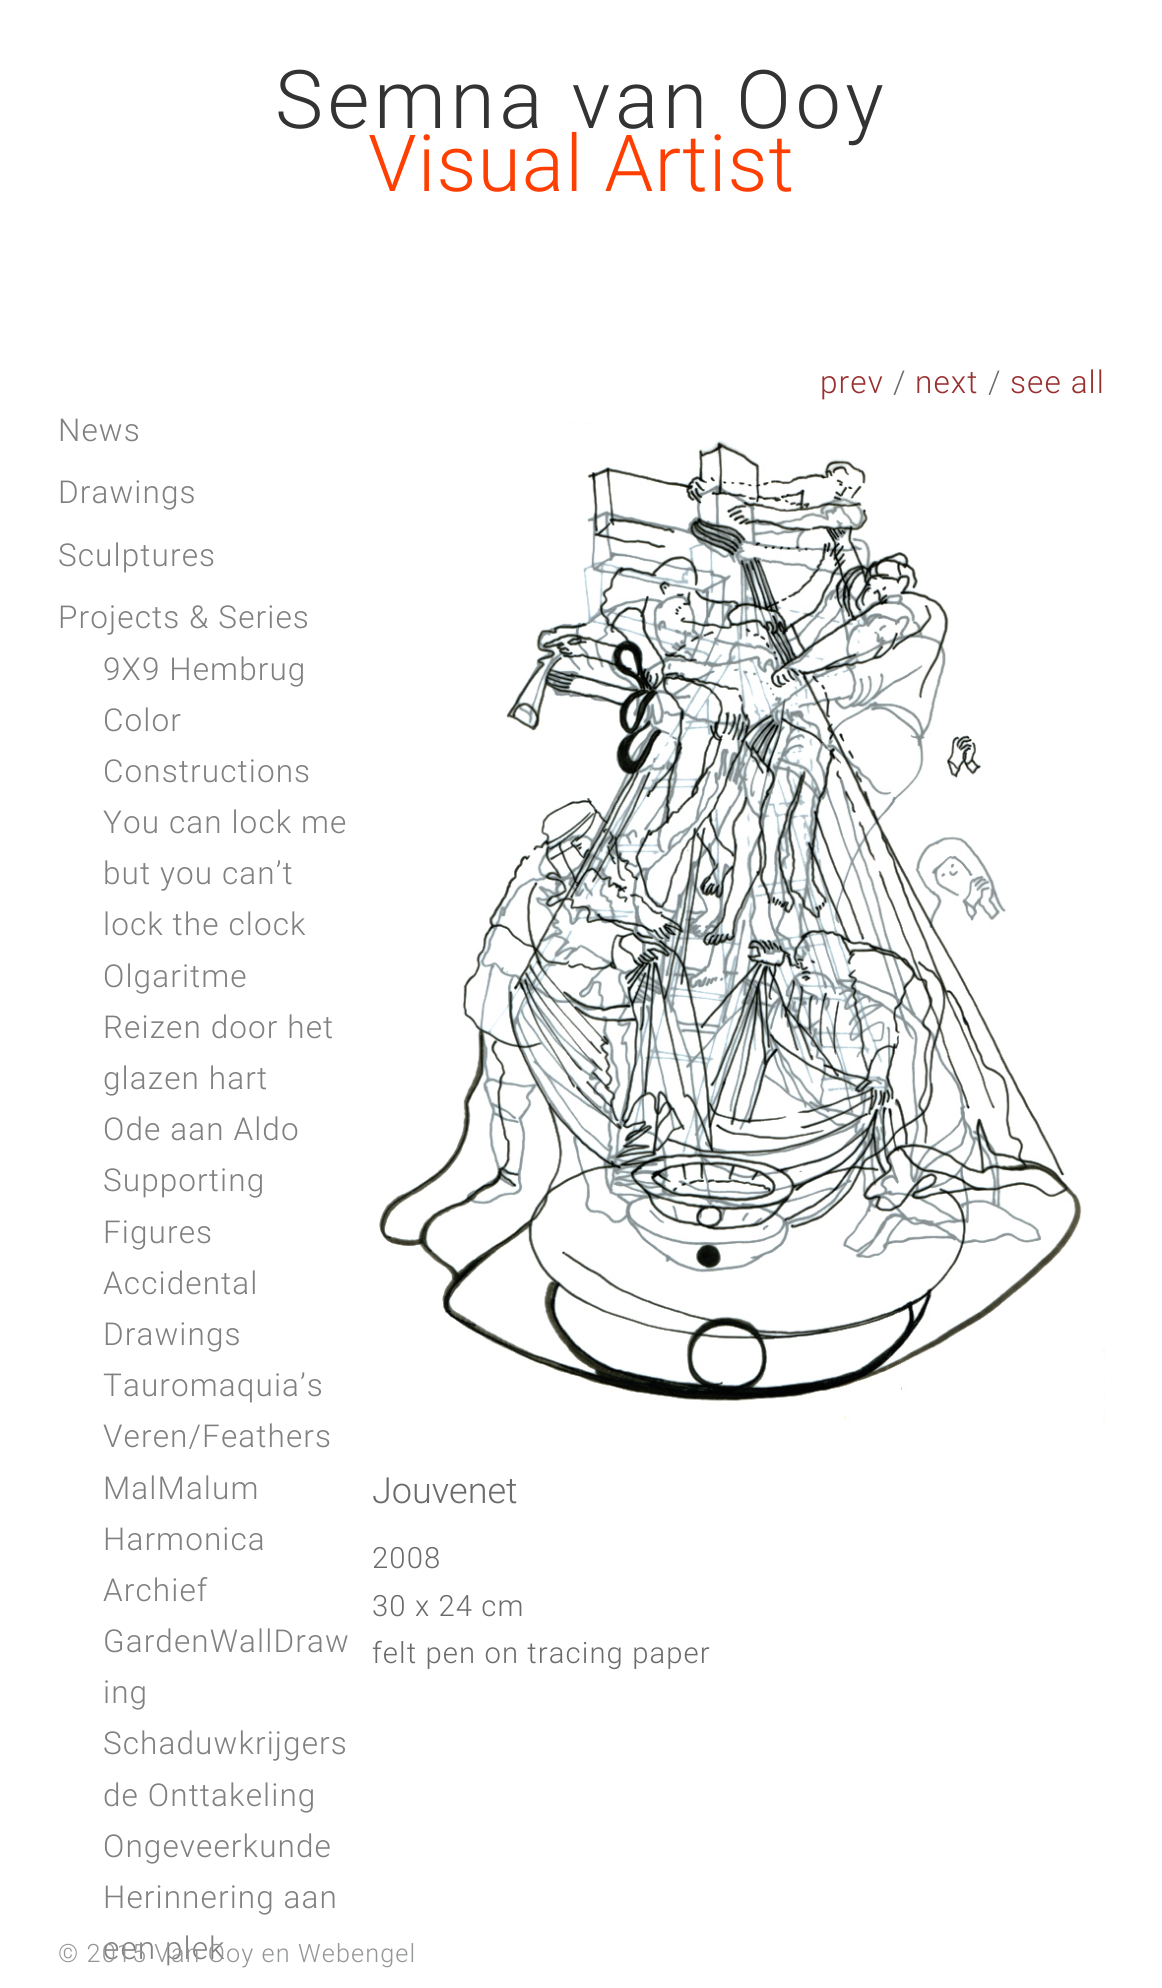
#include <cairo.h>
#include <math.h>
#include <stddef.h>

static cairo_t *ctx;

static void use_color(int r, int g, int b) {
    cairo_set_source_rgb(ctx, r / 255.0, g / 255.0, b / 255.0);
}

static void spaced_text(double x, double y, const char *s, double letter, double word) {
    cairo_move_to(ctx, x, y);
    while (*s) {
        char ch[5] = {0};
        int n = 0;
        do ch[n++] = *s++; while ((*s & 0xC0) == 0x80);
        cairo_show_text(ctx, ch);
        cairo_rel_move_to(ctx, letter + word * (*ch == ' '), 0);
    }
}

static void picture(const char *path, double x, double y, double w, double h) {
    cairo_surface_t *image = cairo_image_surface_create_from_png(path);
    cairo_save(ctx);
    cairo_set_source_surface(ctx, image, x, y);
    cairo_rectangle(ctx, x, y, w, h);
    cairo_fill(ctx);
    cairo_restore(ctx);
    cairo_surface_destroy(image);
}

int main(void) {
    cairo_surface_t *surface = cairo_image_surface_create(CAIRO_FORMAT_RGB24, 1162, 1988);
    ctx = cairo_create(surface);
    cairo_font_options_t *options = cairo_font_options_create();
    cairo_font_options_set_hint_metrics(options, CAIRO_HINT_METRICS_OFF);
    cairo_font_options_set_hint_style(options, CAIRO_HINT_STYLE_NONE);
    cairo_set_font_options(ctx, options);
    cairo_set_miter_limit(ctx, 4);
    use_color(255, 255, 255);
    cairo_paint(ctx);
    cairo_select_font_face(ctx, "Roboto Light", CAIRO_FONT_SLANT_NORMAL, CAIRO_FONT_WEIGHT_NORMAL);
    cairo_set_font_size(ctx, 81);
    use_color(51, 51, 51);
    spaced_text(275, 128, "Semna van Ooy", 4.5, 0);
    cairo_set_font_size(ctx, 78.75);
    use_color(255, 63, 1);
    spaced_text(368, 191, "Visual Artist", 1.1, 0);
    cairo_set_font_size(ctx, 31.5);
    use_color(128, 128, 128);
    spaced_text(58, 441, "News", 1.1, 0);
    spaced_text(58, 503, "Drawings", 1.1, 0);
    spaced_text(58, 566, "Sculptures", 1.1, 0);
    spaced_text(58, 628, "Projects & Series", 1.1, 0);
    spaced_text(103, 680, "9X9 Hembrug", 1.1, 0);
    spaced_text(103, 731, "Color", 1.1, 0);
    spaced_text(103, 782, "Constructions", 1.1, 0);
    spaced_text(103, 833, "You can lock me", 1.1, 0);
    spaced_text(103, 884, "but you can’t", 1.1, 0);
    spaced_text(103, 935, "lock the clock", 1.1, 0);
    spaced_text(103, 987, "Olgaritme", 1.1, 0);
    spaced_text(103, 1038, "Reizen door het", 1.1, 0);
    spaced_text(103, 1089, "glazen hart", 1.1, 0);
    spaced_text(103, 1140, "Ode aan Aldo", 1.1, 0);
    spaced_text(103, 1191, "Supporting", 1.1, 0);
    spaced_text(103, 1243, "Figures", 1.1, 0);
    spaced_text(103, 1294, "Accidental", 1.1, 0);
    spaced_text(103, 1345, "Drawings", 1.1, 0);
    spaced_text(103, 1396, "Tauromaquia’s", 1.1, 0);
    spaced_text(103, 1447, "Veren/Feathers", 1.1, 0);
    spaced_text(103, 1499, "MalMalum", 1.1, 0);
    spaced_text(103, 1550, "Harmonica", 1.1, 0);
    spaced_text(103, 1601, "Archief", 1.1, 0);
    spaced_text(103, 1652, "GardenWallDraw", 1.1, 0);
    spaced_text(103, 1703, "ing", 1.1, 0);
    spaced_text(103, 1754, "Schaduwkrijgers", 1.1, 0);
    spaced_text(103, 1806, "de Onttakeling", 1.1, 0);
    spaced_text(103, 1857, "Ongeveerkunde", 1.1, 0);
    spaced_text(103, 1908, "Herinnering aan", 1.1, 0);
    spaced_text(103, 1959, "een plek", 1.1, 0);
    use_color(153, 47, 47);
    spaced_text(820, 393, "prev", 1.1, 0);
    use_color(107, 107, 107);
    spaced_text(893, 393, "/", 1.1, 0);
    use_color(153, 47, 47);
    spaced_text(915, 393, "next", 1.1, 0);
    use_color(107, 107, 107);
    spaced_text(988, 393, "/", 1.1, 0);
    use_color(153, 47, 47);
    spaced_text(1010, 393, "see all", 1.1, 0);
    picture("img1.png", 379, 423, 726, 1006);
    cairo_set_font_size(ctx, 36);
    use_color(107, 107, 107);
    cairo_move_to(ctx, 372, 1503);
    cairo_show_text(ctx, "Jouvenet");
    cairo_set_font_size(ctx, 29.25);
    spaced_text(372, 1568, "2008", 1.1, 0);
    spaced_text(372, 1616, "30 x 24 cm", 1.1, 0);
    spaced_text(372, 1663, "felt pen on tracing paper", 1.1, 0);
    cairo_set_font_size(ctx, 25.25);
    use_color(147, 151, 147);
    spaced_text(58, 1962, "© 2015 Van Ooy en Webengel", 1.1, 0);
    cairo_surface_write_to_png(surface, "result.png");
    cairo_font_options_destroy(options);
    cairo_destroy(ctx);
    cairo_surface_destroy(surface);
    return 0;
}
